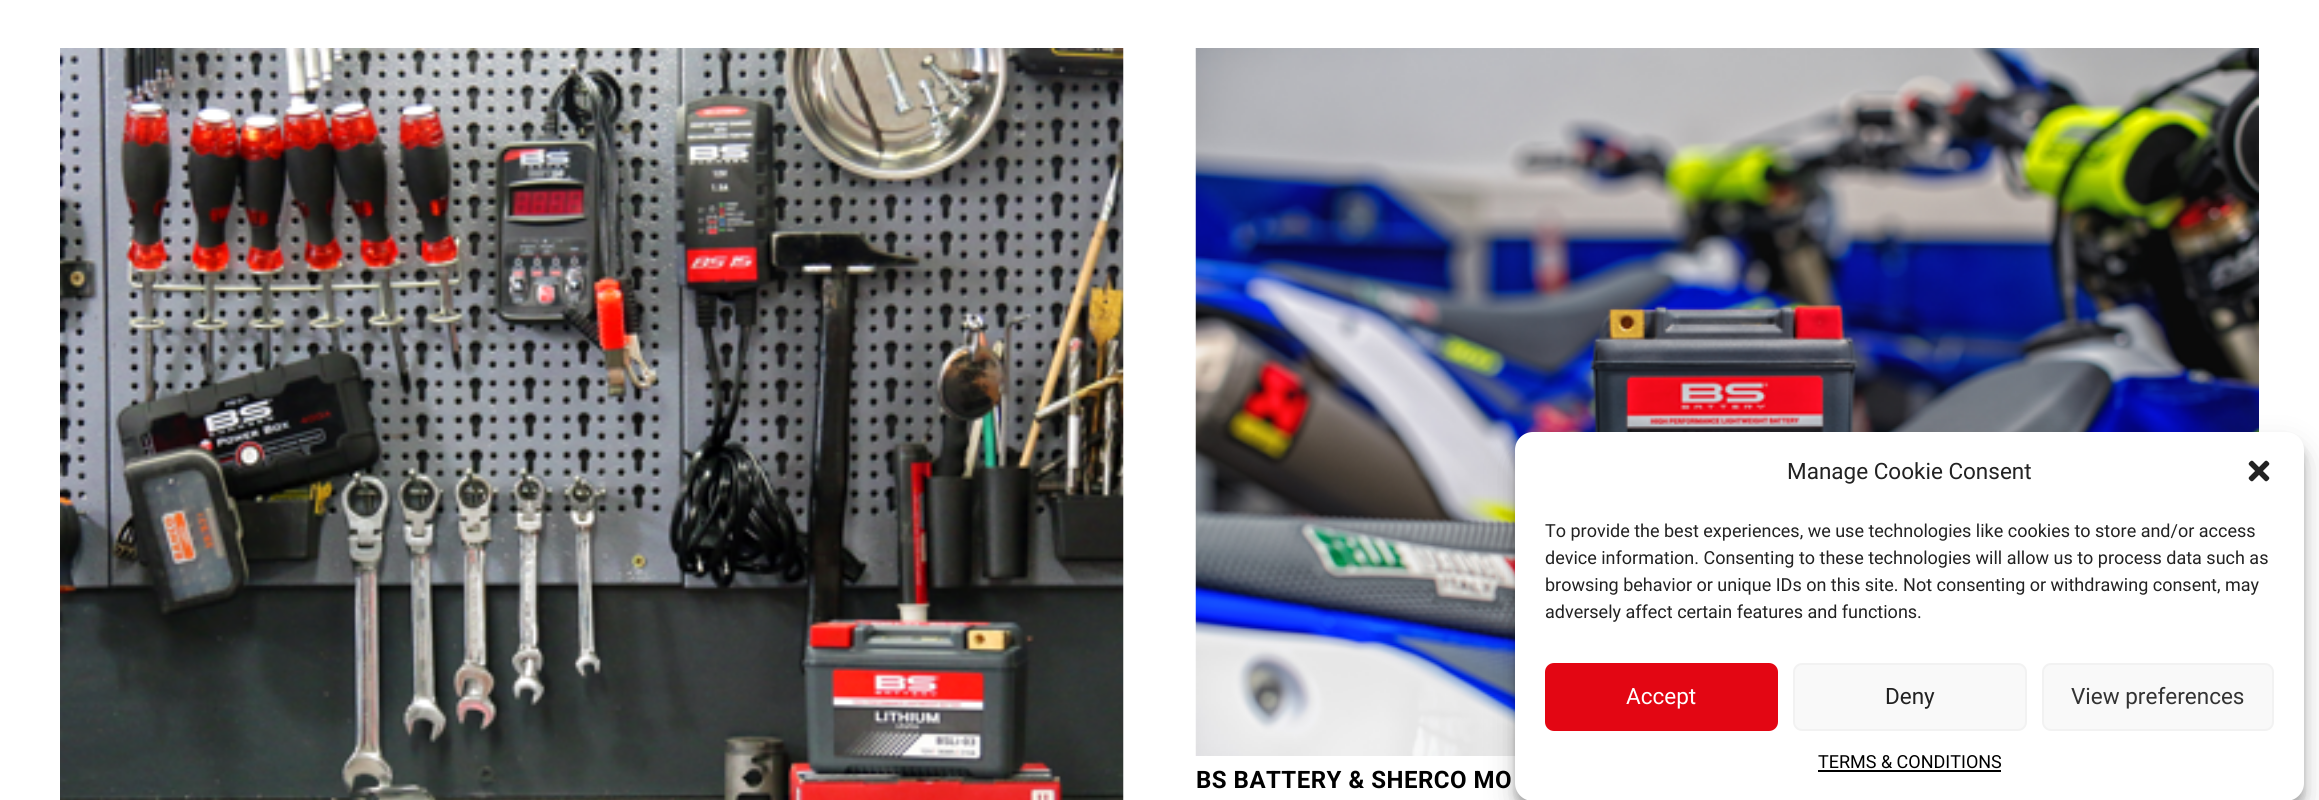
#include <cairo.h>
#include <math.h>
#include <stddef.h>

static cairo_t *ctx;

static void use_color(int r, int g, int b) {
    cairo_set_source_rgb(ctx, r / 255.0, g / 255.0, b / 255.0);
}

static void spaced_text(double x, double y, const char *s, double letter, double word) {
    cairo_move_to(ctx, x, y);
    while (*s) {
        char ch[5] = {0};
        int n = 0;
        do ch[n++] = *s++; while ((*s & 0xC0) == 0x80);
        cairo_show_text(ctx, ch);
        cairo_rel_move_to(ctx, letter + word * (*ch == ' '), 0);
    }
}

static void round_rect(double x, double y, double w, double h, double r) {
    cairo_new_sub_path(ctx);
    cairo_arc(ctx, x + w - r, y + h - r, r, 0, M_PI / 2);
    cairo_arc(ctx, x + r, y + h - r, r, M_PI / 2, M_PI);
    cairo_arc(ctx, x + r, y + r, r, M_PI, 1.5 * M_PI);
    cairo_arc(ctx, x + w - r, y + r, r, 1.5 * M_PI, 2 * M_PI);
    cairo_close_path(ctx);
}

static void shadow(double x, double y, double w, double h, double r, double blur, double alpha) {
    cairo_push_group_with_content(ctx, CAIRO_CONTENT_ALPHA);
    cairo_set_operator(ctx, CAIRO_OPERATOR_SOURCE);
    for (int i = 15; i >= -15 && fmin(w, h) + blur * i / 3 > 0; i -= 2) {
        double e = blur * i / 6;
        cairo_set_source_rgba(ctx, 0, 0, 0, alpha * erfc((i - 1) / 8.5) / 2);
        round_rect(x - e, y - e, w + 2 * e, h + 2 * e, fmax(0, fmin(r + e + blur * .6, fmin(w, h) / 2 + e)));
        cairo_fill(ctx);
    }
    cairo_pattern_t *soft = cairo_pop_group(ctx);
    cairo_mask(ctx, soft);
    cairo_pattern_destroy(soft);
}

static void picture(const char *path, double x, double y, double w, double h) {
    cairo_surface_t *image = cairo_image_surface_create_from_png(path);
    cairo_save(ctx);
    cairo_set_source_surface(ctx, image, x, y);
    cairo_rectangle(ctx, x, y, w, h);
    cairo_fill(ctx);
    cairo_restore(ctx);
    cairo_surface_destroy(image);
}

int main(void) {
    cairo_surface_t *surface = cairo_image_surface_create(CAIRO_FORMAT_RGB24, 2319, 800);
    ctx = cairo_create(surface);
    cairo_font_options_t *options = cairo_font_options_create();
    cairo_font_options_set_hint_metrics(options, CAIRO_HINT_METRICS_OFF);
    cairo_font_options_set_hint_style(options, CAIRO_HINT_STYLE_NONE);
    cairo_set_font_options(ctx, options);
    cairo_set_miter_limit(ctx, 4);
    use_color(255, 255, 255);
    cairo_paint(ctx);
    picture("img3.png", 1195, 48, 1064, 708);
    use_color(0, 0, 0);
    shadow(1515, 441, 789, 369, 18, 4.5, 0.23);
    shadow(1515, 447, 789, 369, 18, 15, 0.19);
    use_color(255, 255, 255);
    round_rect(1515, 432, 789, 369, 18);
    cairo_fill(ctx);
    cairo_select_font_face(ctx, "Roboto", CAIRO_FONT_SLANT_NORMAL, CAIRO_FONT_WEIGHT_NORMAL);
    cairo_set_font_size(ctx, 22.5);
    use_color(34, 34, 34);
    cairo_move_to(ctx, 1787, 479);
    cairo_show_text(ctx, "Manage Cookie Consent");
    picture("img1.png", 2248, 460, 22, 22);
    cairo_set_font_size(ctx, 18);
    cairo_move_to(ctx, 1545, 537);
    cairo_show_text(ctx, "To provide the best experiences, we use technologies like cookies to store and/or access");
    cairo_move_to(ctx, 1545, 564);
    cairo_show_text(ctx, "device information. Consenting to these technologies will allow us to process data such as");
    cairo_move_to(ctx, 1545, 591);
    cairo_show_text(ctx, "browsing behavior or unique IDs on this site. Not consenting or withdrawing consent, may");
    cairo_move_to(ctx, 1545, 618);
    cairo_show_text(ctx, "adversely affect certain features and functions.");
    use_color(227, 6, 19);
    round_rect(1546, 664, 231, 66, 8);
    cairo_fill_preserve(ctx);
    cairo_stroke(ctx);
    cairo_set_font_size(ctx, 22.5);
    use_color(255, 255, 255);
    cairo_move_to(ctx, 1626, 704);
    cairo_show_text(ctx, "Accept");
    use_color(249, 249, 249);
    round_rect(1794, 664, 232, 66, 8);
    cairo_fill_preserve(ctx);
    use_color(242, 242, 242);
    cairo_stroke(ctx);
    use_color(34, 34, 34);
    cairo_move_to(ctx, 1885, 704);
    cairo_show_text(ctx, "Deny");
    use_color(249, 249, 249);
    round_rect(2043, 664, 230, 66, 8);
    cairo_fill_preserve(ctx);
    use_color(242, 242, 242);
    cairo_stroke(ctx);
    use_color(51, 51, 51);
    cairo_move_to(ctx, 2071, 704);
    cairo_show_text(ctx, "View preferences");
    cairo_set_font_size(ctx, 18);
    use_color(0, 0, 0);
    cairo_move_to(ctx, 1818, 768);
    cairo_show_text(ctx, "TERMS & CONDITIONS");
    cairo_rectangle(ctx, 1818, 770, 183, 2);
    cairo_fill(ctx);
    picture("img2.png", 60, 48, 1064, 752);
    cairo_select_font_face(ctx, "Roboto", CAIRO_FONT_SLANT_NORMAL, CAIRO_FONT_WEIGHT_BOLD);
    cairo_set_font_size(ctx, 24);
    spaced_text(1196, 788, "BS BATTERY & SHERCO MO", 0.5, 0);
    cairo_surface_write_to_png(surface, "result.png");
    cairo_font_options_destroy(options);
    cairo_destroy(ctx);
    cairo_surface_destroy(surface);
    return 0;
}
